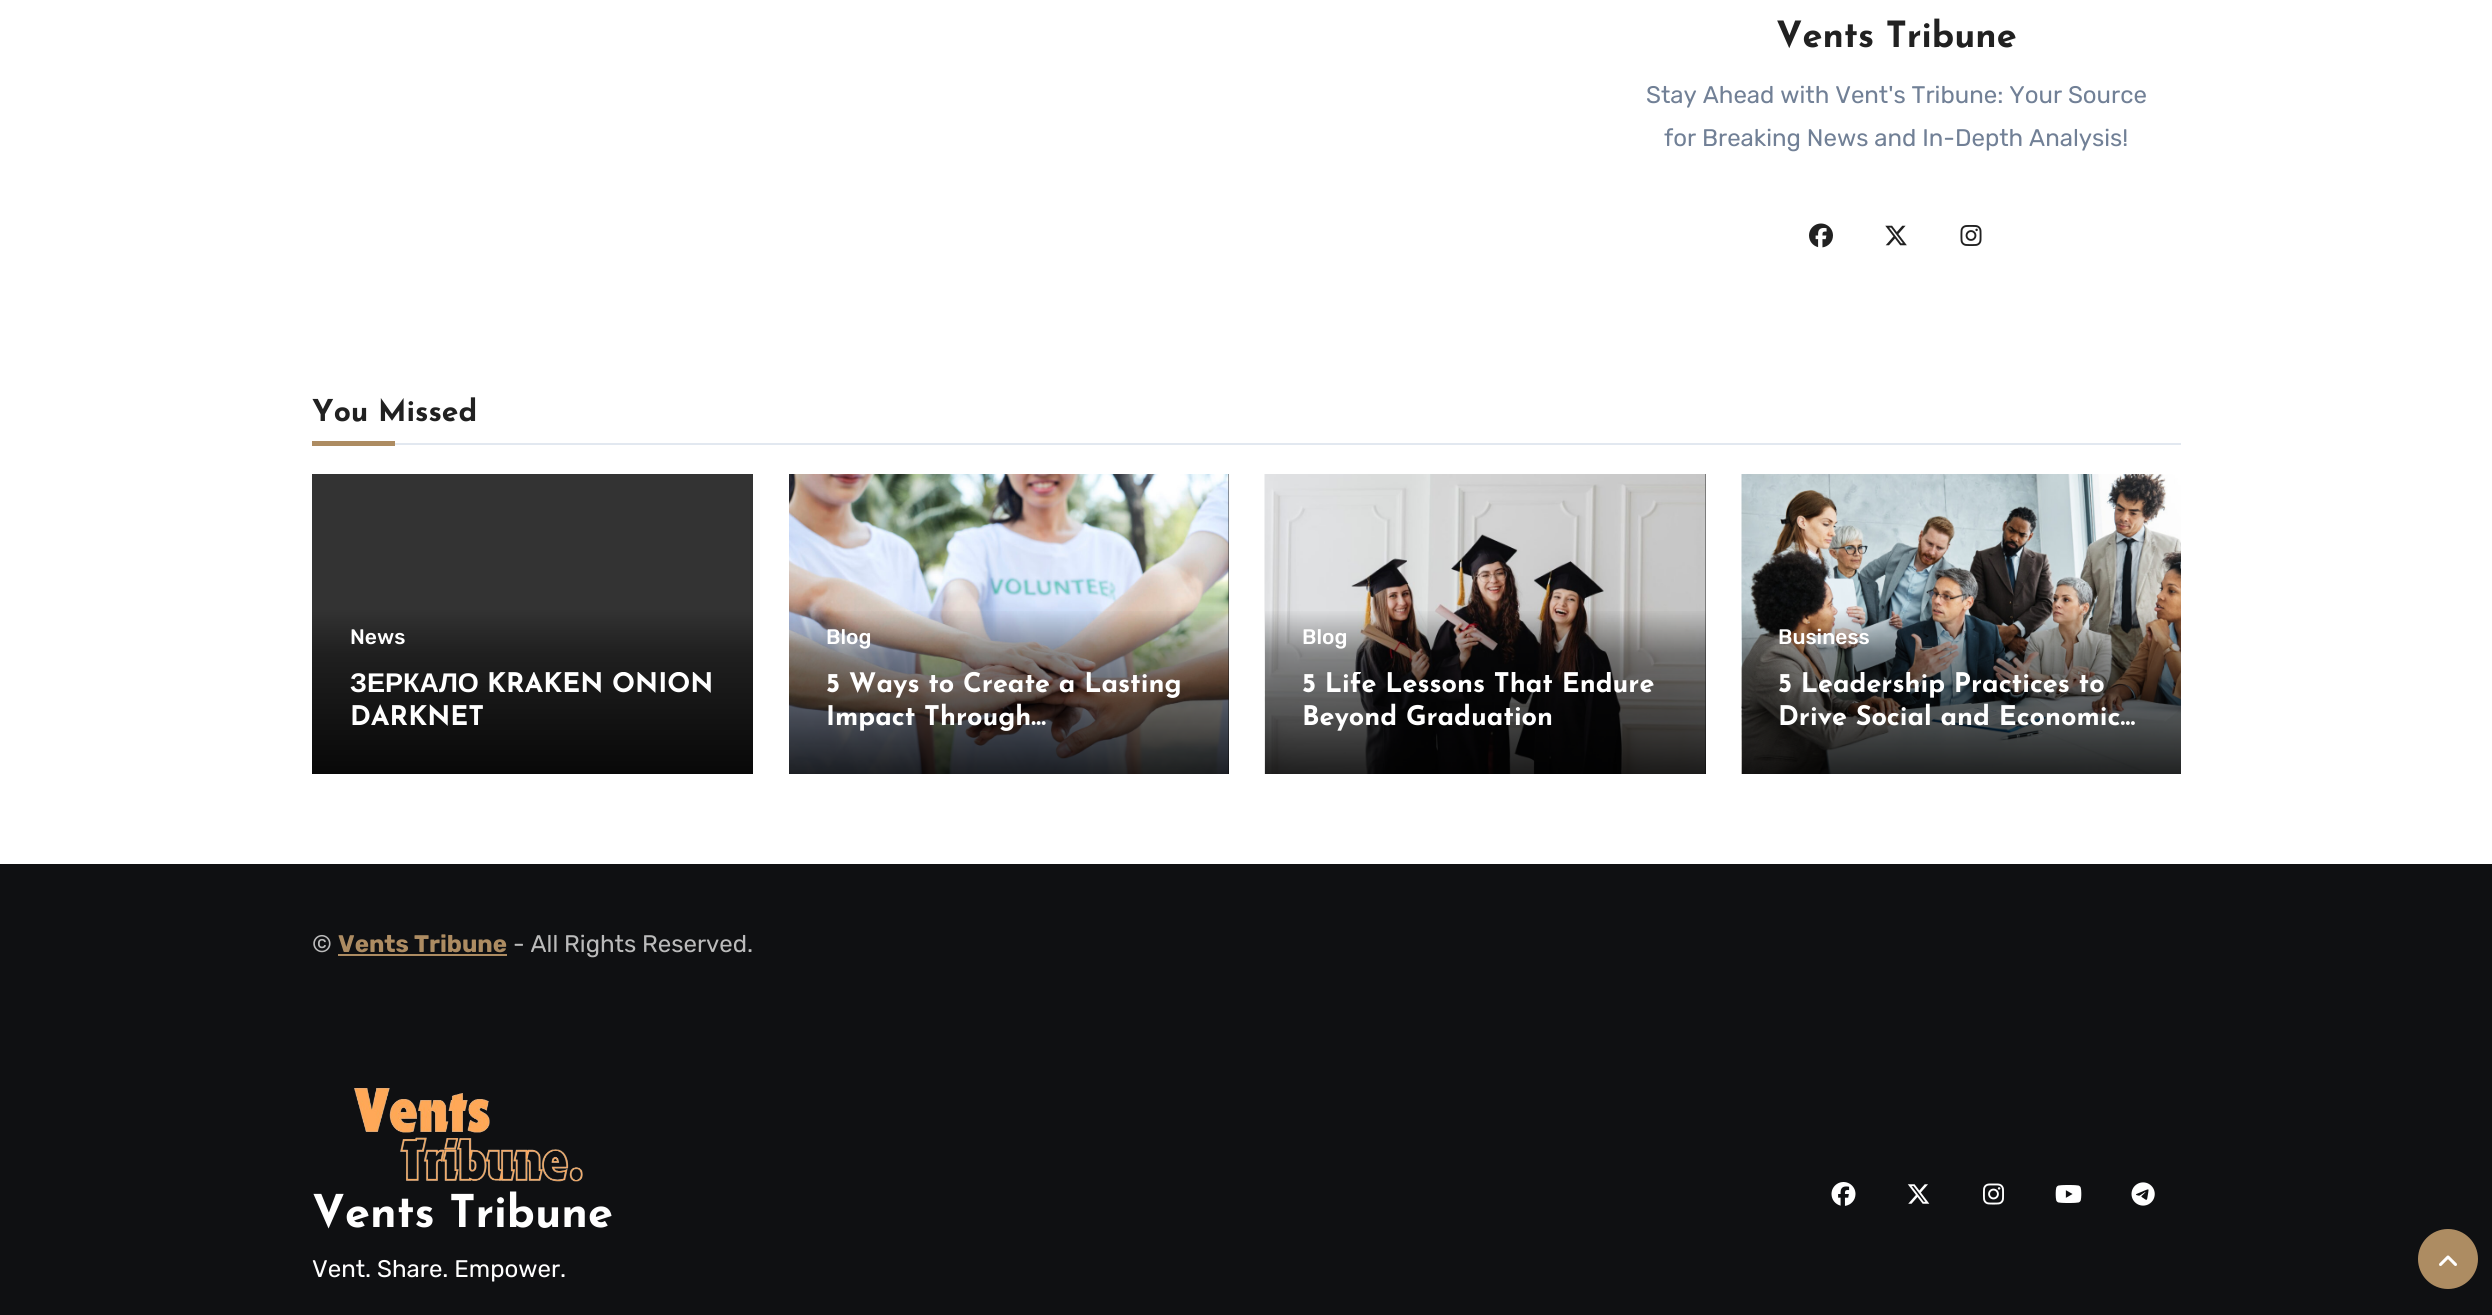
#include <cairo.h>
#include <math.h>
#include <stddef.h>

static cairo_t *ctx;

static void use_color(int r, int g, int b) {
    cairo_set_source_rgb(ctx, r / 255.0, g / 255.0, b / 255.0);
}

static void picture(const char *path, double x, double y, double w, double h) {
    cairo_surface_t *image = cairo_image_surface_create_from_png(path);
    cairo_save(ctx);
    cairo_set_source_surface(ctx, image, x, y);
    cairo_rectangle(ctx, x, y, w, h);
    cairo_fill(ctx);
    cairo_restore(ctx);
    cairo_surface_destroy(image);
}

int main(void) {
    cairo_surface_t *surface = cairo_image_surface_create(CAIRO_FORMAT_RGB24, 2492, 1315);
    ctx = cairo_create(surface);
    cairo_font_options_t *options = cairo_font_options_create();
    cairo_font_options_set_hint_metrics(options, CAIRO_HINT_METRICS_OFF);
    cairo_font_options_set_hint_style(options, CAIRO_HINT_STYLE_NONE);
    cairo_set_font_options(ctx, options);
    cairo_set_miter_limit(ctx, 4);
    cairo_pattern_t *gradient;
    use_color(255, 255, 255);
    cairo_paint(ctx);
    cairo_select_font_face(ctx, "Josefin Sans", CAIRO_FONT_SLANT_NORMAL, CAIRO_FONT_WEIGHT_BOLD);
    cairo_set_font_size(ctx, 36);
    use_color(33, 33, 33);
    cairo_move_to(ctx, 1776, 47);
    cairo_show_text(ctx, "Vents Tribune");
    cairo_select_font_face(ctx, "Rubik Light", CAIRO_FONT_SLANT_NORMAL, CAIRO_FONT_WEIGHT_NORMAL);
    cairo_set_font_size(ctx, 24);
    use_color(113, 128, 150);
    cairo_move_to(ctx, 1646, 103);
    cairo_show_text(ctx, "Stay Ahead with Vent's Tribune: Your Source");
    cairo_move_to(ctx, 1664, 146);
    cairo_show_text(ctx, "for Breaking News and In-Depth Analysis!");
    picture("img1.png", 1809, 223, 24, 25);
    picture("img2.png", 1885, 225, 22, 21);
    picture("img3.png", 1960, 225, 22, 21);
    use_color(226, 232, 240);
    cairo_rectangle(ctx, 395, 443, 1786, 2);
    cairo_fill(ctx);
    cairo_select_font_face(ctx, "Josefin Sans", CAIRO_FONT_SLANT_NORMAL, CAIRO_FONT_WEIGHT_BOLD);
    cairo_set_font_size(ctx, 30);
    use_color(33, 33, 33);
    cairo_move_to(ctx, 312, 421);
    cairo_show_text(ctx, "You Missed");
    use_color(173, 140, 98);
    cairo_rectangle(ctx, 312, 441, 83, 5);
    cairo_fill(ctx);
    gradient = cairo_pattern_create_linear(533, 474, 533, 774);
    cairo_pattern_add_color_stop_rgba(gradient, 0, 0.2, 0.2, 0.2, 1);
    cairo_pattern_add_color_stop_rgba(gradient, 0.45, 0.2, 0.2, 0.2, 1);
    cairo_pattern_add_color_stop_rgba(gradient, 0.6, 0.122, 0.122, 0.122, 1);
    cairo_pattern_add_color_stop_rgba(gradient, 1, 0.031, 0.031, 0.031, 1);
    cairo_set_source(ctx, gradient);
    cairo_pattern_destroy(gradient);
    cairo_rectangle(ctx, 312, 474, 441, 300);
    cairo_fill(ctx);
    cairo_select_font_face(ctx, "Rubik Medium", CAIRO_FONT_SLANT_NORMAL, CAIRO_FONT_WEIGHT_NORMAL);
    cairo_set_font_size(ctx, 21);
    use_color(255, 255, 255);
    cairo_move_to(ctx, 350, 644);
    cairo_show_text(ctx, "News");
    cairo_select_font_face(ctx, "Liberation Sans", CAIRO_FONT_SLANT_NORMAL, CAIRO_FONT_WEIGHT_BOLD);
    cairo_set_font_size(ctx, 27);
    cairo_move_to(ctx, 350, 692);
    cairo_show_text(ctx, "ЗЕРКАЛО");
    cairo_save(ctx);
    cairo_rectangle(ctx, 350, 672, 366, 65);
    cairo_clip(ctx);
    cairo_select_font_face(ctx, "Josefin Sans", CAIRO_FONT_SLANT_NORMAL, CAIRO_FONT_WEIGHT_BOLD);
    cairo_move_to(ctx, 487, 692);
    cairo_show_text(ctx, "KRAKEN ONION");
    cairo_restore(ctx);
    cairo_select_font_face(ctx, "Josefin Sans", CAIRO_FONT_SLANT_NORMAL, CAIRO_FONT_WEIGHT_BOLD);
    cairo_move_to(ctx, 350, 725);
    cairo_show_text(ctx, "DARKNET");
    use_color(51, 51, 51);
    cairo_rectangle(ctx, 1228, 474, 1, 300);
    cairo_fill(ctx);
    picture("img4.png", 789, 474, 440, 300);
    gradient = cairo_pattern_create_linear(1009, 474, 1009, 774);
    cairo_pattern_add_color_stop_rgba(gradient, 0, 0, 0, 0, 0);
    cairo_pattern_add_color_stop_rgba(gradient, 0.45, 0, 0, 0, 0);
    cairo_pattern_add_color_stop_rgba(gradient, 0.6, 0, 0, 0, 0.4);
    cairo_pattern_add_color_stop_rgba(gradient, 1, 0, 0, 0, 0.85);
    cairo_set_source(ctx, gradient);
    cairo_pattern_destroy(gradient);
    cairo_rectangle(ctx, 789, 611, 440, 163);
    cairo_fill(ctx);
    cairo_select_font_face(ctx, "Rubik Medium", CAIRO_FONT_SLANT_NORMAL, CAIRO_FONT_WEIGHT_NORMAL);
    cairo_set_font_size(ctx, 21);
    use_color(255, 255, 255);
    cairo_move_to(ctx, 826, 644);
    cairo_show_text(ctx, "Blog");
    cairo_select_font_face(ctx, "Josefin Sans", CAIRO_FONT_SLANT_NORMAL, CAIRO_FONT_WEIGHT_BOLD);
    cairo_set_font_size(ctx, 27);
    cairo_move_to(ctx, 826, 692);
    cairo_show_text(ctx, "5 Ways to Create a Lasting");
    cairo_move_to(ctx, 826, 725);
    cairo_show_text(ctx, "Impact Through…");
    use_color(51, 51, 51);
    cairo_rectangle(ctx, 1705, 474, 1, 300);
    cairo_fill(ctx);
    picture("img5.png", 1264, 474, 442, 300);
    gradient = cairo_pattern_create_linear(1485, 474, 1485, 774);
    cairo_pattern_add_color_stop_rgba(gradient, 0, 0, 0, 0, 0);
    cairo_pattern_add_color_stop_rgba(gradient, 0.45, 0, 0, 0, 0);
    cairo_pattern_add_color_stop_rgba(gradient, 0.6, 0, 0, 0, 0.4);
    cairo_pattern_add_color_stop_rgba(gradient, 1, 0, 0, 0, 0.85);
    cairo_set_source(ctx, gradient);
    cairo_pattern_destroy(gradient);
    cairo_rectangle(ctx, 1265, 611, 441, 163);
    cairo_fill(ctx);
    cairo_select_font_face(ctx, "Rubik Medium", CAIRO_FONT_SLANT_NORMAL, CAIRO_FONT_WEIGHT_NORMAL);
    cairo_set_font_size(ctx, 21);
    use_color(255, 255, 255);
    cairo_move_to(ctx, 1302, 644);
    cairo_show_text(ctx, "Blog");
    cairo_save(ctx);
    cairo_rectangle(ctx, 1302, 672, 366, 65);
    cairo_clip(ctx);
    cairo_select_font_face(ctx, "Josefin Sans", CAIRO_FONT_SLANT_NORMAL, CAIRO_FONT_WEIGHT_BOLD);
    cairo_set_font_size(ctx, 27);
    cairo_move_to(ctx, 1302, 692);
    cairo_show_text(ctx, "5 Life Lessons That Endure");
    cairo_restore(ctx);
    cairo_select_font_face(ctx, "Josefin Sans", CAIRO_FONT_SLANT_NORMAL, CAIRO_FONT_WEIGHT_BOLD);
    cairo_set_font_size(ctx, 27);
    cairo_move_to(ctx, 1302, 725);
    cairo_show_text(ctx, "Beyond Graduation");
    picture("img6.png", 1741, 474, 440, 300);
    cairo_select_font_face(ctx, "Rubik Medium", CAIRO_FONT_SLANT_NORMAL, CAIRO_FONT_WEIGHT_NORMAL);
    cairo_set_font_size(ctx, 21);
    cairo_move_to(ctx, 1778, 644);
    cairo_show_text(ctx, "Business");
    cairo_save(ctx);
    cairo_rectangle(ctx, 1779, 672, 365, 65);
    cairo_clip(ctx);
    cairo_select_font_face(ctx, "Josefin Sans", CAIRO_FONT_SLANT_NORMAL, CAIRO_FONT_WEIGHT_BOLD);
    cairo_set_font_size(ctx, 27);
    cairo_move_to(ctx, 1778, 692);
    cairo_show_text(ctx, "5 Leadership Practices to");
    cairo_restore(ctx);
    cairo_select_font_face(ctx, "Josefin Sans", CAIRO_FONT_SLANT_NORMAL, CAIRO_FONT_WEIGHT_BOLD);
    cairo_set_font_size(ctx, 27);
    cairo_move_to(ctx, 1778, 725);
    cairo_show_text(ctx, "Drive Social and Economic…");
    use_color(15, 16, 18);
    cairo_rectangle(ctx, 0, 864, 2492, 451);
    cairo_fill(ctx);
    cairo_select_font_face(ctx, "Rubik Light", CAIRO_FONT_SLANT_NORMAL, CAIRO_FONT_WEIGHT_NORMAL);
    cairo_set_font_size(ctx, 24);
    use_color(187, 187, 187);
    cairo_move_to(ctx, 312, 952);
    cairo_show_text(ctx, "©");
    cairo_select_font_face(ctx, "Rubik", CAIRO_FONT_SLANT_NORMAL, CAIRO_FONT_WEIGHT_BOLD);
    use_color(173, 140, 98);
    cairo_move_to(ctx, 338, 952);
    cairo_show_text(ctx, "Vents Tribune");
    cairo_rectangle(ctx, 338, 954, 169, 2);
    cairo_fill(ctx);
    cairo_select_font_face(ctx, "Rubik Light", CAIRO_FONT_SLANT_NORMAL, CAIRO_FONT_WEIGHT_NORMAL);
    use_color(187, 187, 187);
    cairo_move_to(ctx, 513, 952);
    cairo_show_text(ctx, "- All Rights Reserved.");
    picture("img7.png", 354, 1088, 229, 94);
    cairo_select_font_face(ctx, "Josefin Sans", CAIRO_FONT_SLANT_NORMAL, CAIRO_FONT_WEIGHT_BOLD);
    cairo_set_font_size(ctx, 45);
    use_color(255, 255, 255);
    cairo_move_to(ctx, 312, 1227);
    cairo_show_text(ctx, "Vents Tribune");
    cairo_select_font_face(ctx, "Rubik Light", CAIRO_FONT_SLANT_NORMAL, CAIRO_FONT_WEIGHT_NORMAL);
    cairo_set_font_size(ctx, 24);
    cairo_move_to(ctx, 312, 1277);
    cairo_show_text(ctx, "Vent. Share. Empower.");
    picture("img8.png", 1831, 1182, 25, 24);
    picture("img9.png", 1907, 1184, 23, 20);
    picture("img10.png", 1983, 1183, 21, 22);
    picture("img11.png", 2055, 1185, 27, 18);
    picture("img12.png", 2131, 1182, 24, 24);
    use_color(173, 140, 98);
    cairo_arc(ctx, 2448, 1259, 28.5, 0, 2 * M_PI);
    cairo_fill_preserve(ctx);
    cairo_set_line_width(ctx, 3);
    cairo_stroke(ctx);
    picture("img13.png", 2439, 1255, 18, 11);
    cairo_surface_write_to_png(surface, "result.png");
    cairo_font_options_destroy(options);
    cairo_destroy(ctx);
    cairo_surface_destroy(surface);
    return 0;
}
